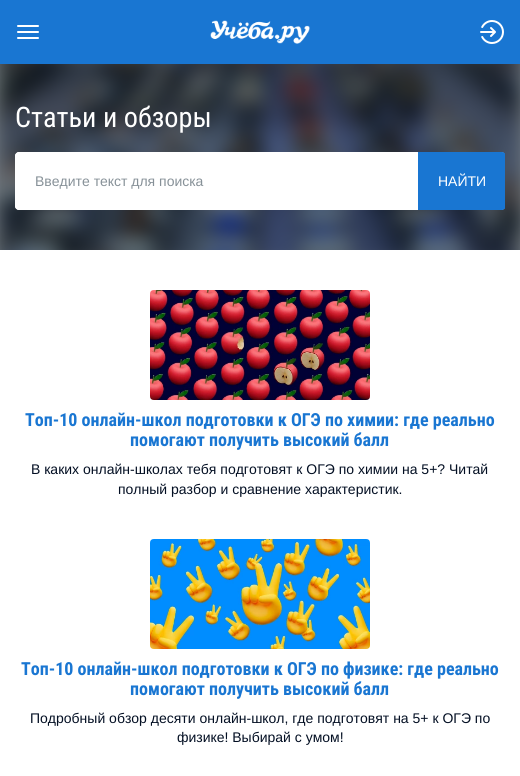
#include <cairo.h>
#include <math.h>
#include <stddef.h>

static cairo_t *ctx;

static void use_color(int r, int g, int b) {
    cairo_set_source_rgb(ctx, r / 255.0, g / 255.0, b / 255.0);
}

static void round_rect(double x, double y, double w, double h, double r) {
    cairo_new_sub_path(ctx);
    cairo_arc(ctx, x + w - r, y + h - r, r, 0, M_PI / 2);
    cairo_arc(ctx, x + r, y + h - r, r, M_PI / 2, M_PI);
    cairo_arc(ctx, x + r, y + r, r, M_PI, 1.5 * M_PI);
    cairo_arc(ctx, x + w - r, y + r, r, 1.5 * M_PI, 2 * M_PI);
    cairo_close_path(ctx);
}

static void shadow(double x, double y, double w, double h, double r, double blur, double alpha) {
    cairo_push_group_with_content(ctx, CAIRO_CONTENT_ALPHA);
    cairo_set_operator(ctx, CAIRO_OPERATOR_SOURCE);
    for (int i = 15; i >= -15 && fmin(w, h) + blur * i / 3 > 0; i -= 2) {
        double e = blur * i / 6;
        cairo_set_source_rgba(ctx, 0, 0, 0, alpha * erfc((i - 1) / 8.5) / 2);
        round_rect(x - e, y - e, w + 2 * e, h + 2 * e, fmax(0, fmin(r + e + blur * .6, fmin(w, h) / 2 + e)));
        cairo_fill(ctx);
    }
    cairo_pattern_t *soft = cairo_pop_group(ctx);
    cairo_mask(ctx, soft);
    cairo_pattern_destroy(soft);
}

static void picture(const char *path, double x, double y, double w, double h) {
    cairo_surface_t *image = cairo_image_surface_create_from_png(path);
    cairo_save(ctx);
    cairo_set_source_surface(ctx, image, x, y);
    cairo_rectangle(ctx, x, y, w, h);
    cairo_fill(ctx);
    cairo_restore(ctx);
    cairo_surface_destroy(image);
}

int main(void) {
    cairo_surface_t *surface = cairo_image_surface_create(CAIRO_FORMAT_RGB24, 520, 776);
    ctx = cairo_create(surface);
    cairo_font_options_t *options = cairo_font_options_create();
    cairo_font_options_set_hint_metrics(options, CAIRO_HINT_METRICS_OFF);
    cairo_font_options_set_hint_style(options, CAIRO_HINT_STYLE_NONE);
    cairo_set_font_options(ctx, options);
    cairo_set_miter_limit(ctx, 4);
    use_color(255, 255, 255);
    cairo_paint(ctx);
    picture("img3.png", 0, 64, 520, 186);
    cairo_save(ctx);
    cairo_rectangle(ctx, 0, 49, 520, 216);
    cairo_clip(ctx);
    use_color(13, 27, 41);
    shadow(-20, 29, 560, 256, 0, 10, 0.6);
    cairo_restore(ctx);
    use_color(25, 118, 210);
    cairo_rectangle(ctx, 0, 0, 520, 64);
    cairo_fill(ctx);
    use_color(255, 255, 255);
    round_rect(17, 25, 22, 2, 1);
    cairo_fill(ctx);
    round_rect(17, 31, 22, 2, 1);
    cairo_fill(ctx);
    round_rect(17, 37, 22, 2, 1);
    cairo_fill(ctx);
    picture("img1.png", 210, 20, 100, 24);
    picture("img2.png", 480, 20, 24, 24);
    cairo_rectangle(ctx, 0, 250, 520, 15);
    cairo_fill(ctx);
    cairo_select_font_face(ctx, "Roboto Condensed", CAIRO_FONT_SLANT_NORMAL, CAIRO_FONT_WEIGHT_NORMAL);
    cairo_set_font_size(ctx, 28.25);
    cairo_move_to(ctx, 15, 127);
    cairo_show_text(ctx, "Статьи и обзоры");
    round_rect(15, 152, 490, 58, 4);
    cairo_fill(ctx);
    cairo_new_path(ctx);
    cairo_move_to(ctx, 19, 152);
    cairo_line_to(ctx, 417, 152);
    cairo_line_to(ctx, 417, 210);
    cairo_line_to(ctx, 19, 210);
    cairo_curve_to(ctx, 17, 210, 15, 208, 15, 206);
    cairo_line_to(ctx, 15, 156);
    cairo_curve_to(ctx, 15, 154, 17, 152, 19, 152);
    cairo_close_path(ctx);
    cairo_fill(ctx);
    cairo_select_font_face(ctx, "Liberation Sans", CAIRO_FONT_SLANT_NORMAL, CAIRO_FONT_WEIGHT_NORMAL);
    cairo_set_font_size(ctx, 14);
    use_color(135, 145, 152);
    cairo_move_to(ctx, 35, 186);
    cairo_show_text(ctx, "Введите текст для поиска");
    cairo_save(ctx);
    cairo_rectangle(ctx, 417, 152, 88, 58);
    cairo_clip(ctx);
    use_color(25, 118, 210);
    cairo_new_path(ctx);
    cairo_move_to(ctx, 418, 152);
    cairo_line_to(ctx, 502, 152);
    cairo_curve_to(ctx, 504, 152, 506, 154, 506, 156);
    cairo_line_to(ctx, 506, 206);
    cairo_curve_to(ctx, 506, 208, 504, 210, 502, 210);
    cairo_line_to(ctx, 418, 210);
    cairo_close_path(ctx);
    cairo_fill(ctx);
    cairo_restore(ctx);
    use_color(255, 255, 255);
    cairo_move_to(ctx, 438, 186);
    cairo_show_text(ctx, "НАЙТИ");
    picture("img4.png", 150, 290, 220, 110);
    cairo_select_font_face(ctx, "Roboto Condensed", CAIRO_FONT_SLANT_NORMAL, CAIRO_FONT_WEIGHT_BOLD);
    cairo_set_font_size(ctx, 18);
    use_color(25, 118, 210);
    cairo_move_to(ctx, 25, 426);
    cairo_show_text(ctx, "Топ-10 онлайн-школ подготовки к ОГЭ по химии: где реально");
    cairo_move_to(ctx, 130, 446);
    cairo_show_text(ctx, "помогают получить высокий балл");
    cairo_select_font_face(ctx, "Liberation Sans", CAIRO_FONT_SLANT_NORMAL, CAIRO_FONT_WEIGHT_NORMAL);
    cairo_set_font_size(ctx, 14);
    use_color(3, 15, 35);
    cairo_move_to(ctx, 31, 474);
    cairo_show_text(ctx, "В каких онлайн-школах тебя подготовят к ОГЭ по химии на 5+? Читай");
    cairo_move_to(ctx, 118, 494);
    cairo_show_text(ctx, "полный разбор и сравнение характеристик.");
    picture("img5.png", 150, 539, 220, 110);
    cairo_select_font_face(ctx, "Roboto Condensed", CAIRO_FONT_SLANT_NORMAL, CAIRO_FONT_WEIGHT_BOLD);
    cairo_set_font_size(ctx, 18);
    use_color(25, 118, 210);
    cairo_move_to(ctx, 21, 675);
    cairo_show_text(ctx, "Топ-10 онлайн-школ подготовки к ОГЭ по физике: где реально");
    cairo_move_to(ctx, 130, 695);
    cairo_show_text(ctx, "помогают получить высокий балл");
    cairo_select_font_face(ctx, "Liberation Sans", CAIRO_FONT_SLANT_NORMAL, CAIRO_FONT_WEIGHT_NORMAL);
    cairo_set_font_size(ctx, 14);
    use_color(3, 15, 35);
    cairo_move_to(ctx, 30, 723);
    cairo_show_text(ctx, "Подробный обзор десяти онлайн-школ, где подготовят на 5+ к ОГЭ по");
    cairo_move_to(ctx, 177, 742);
    cairo_show_text(ctx, "физике! Выбирай с умом!");
    cairo_surface_write_to_png(surface, "result.png");
    cairo_font_options_destroy(options);
    cairo_destroy(ctx);
    cairo_surface_destroy(surface);
    return 0;
}
